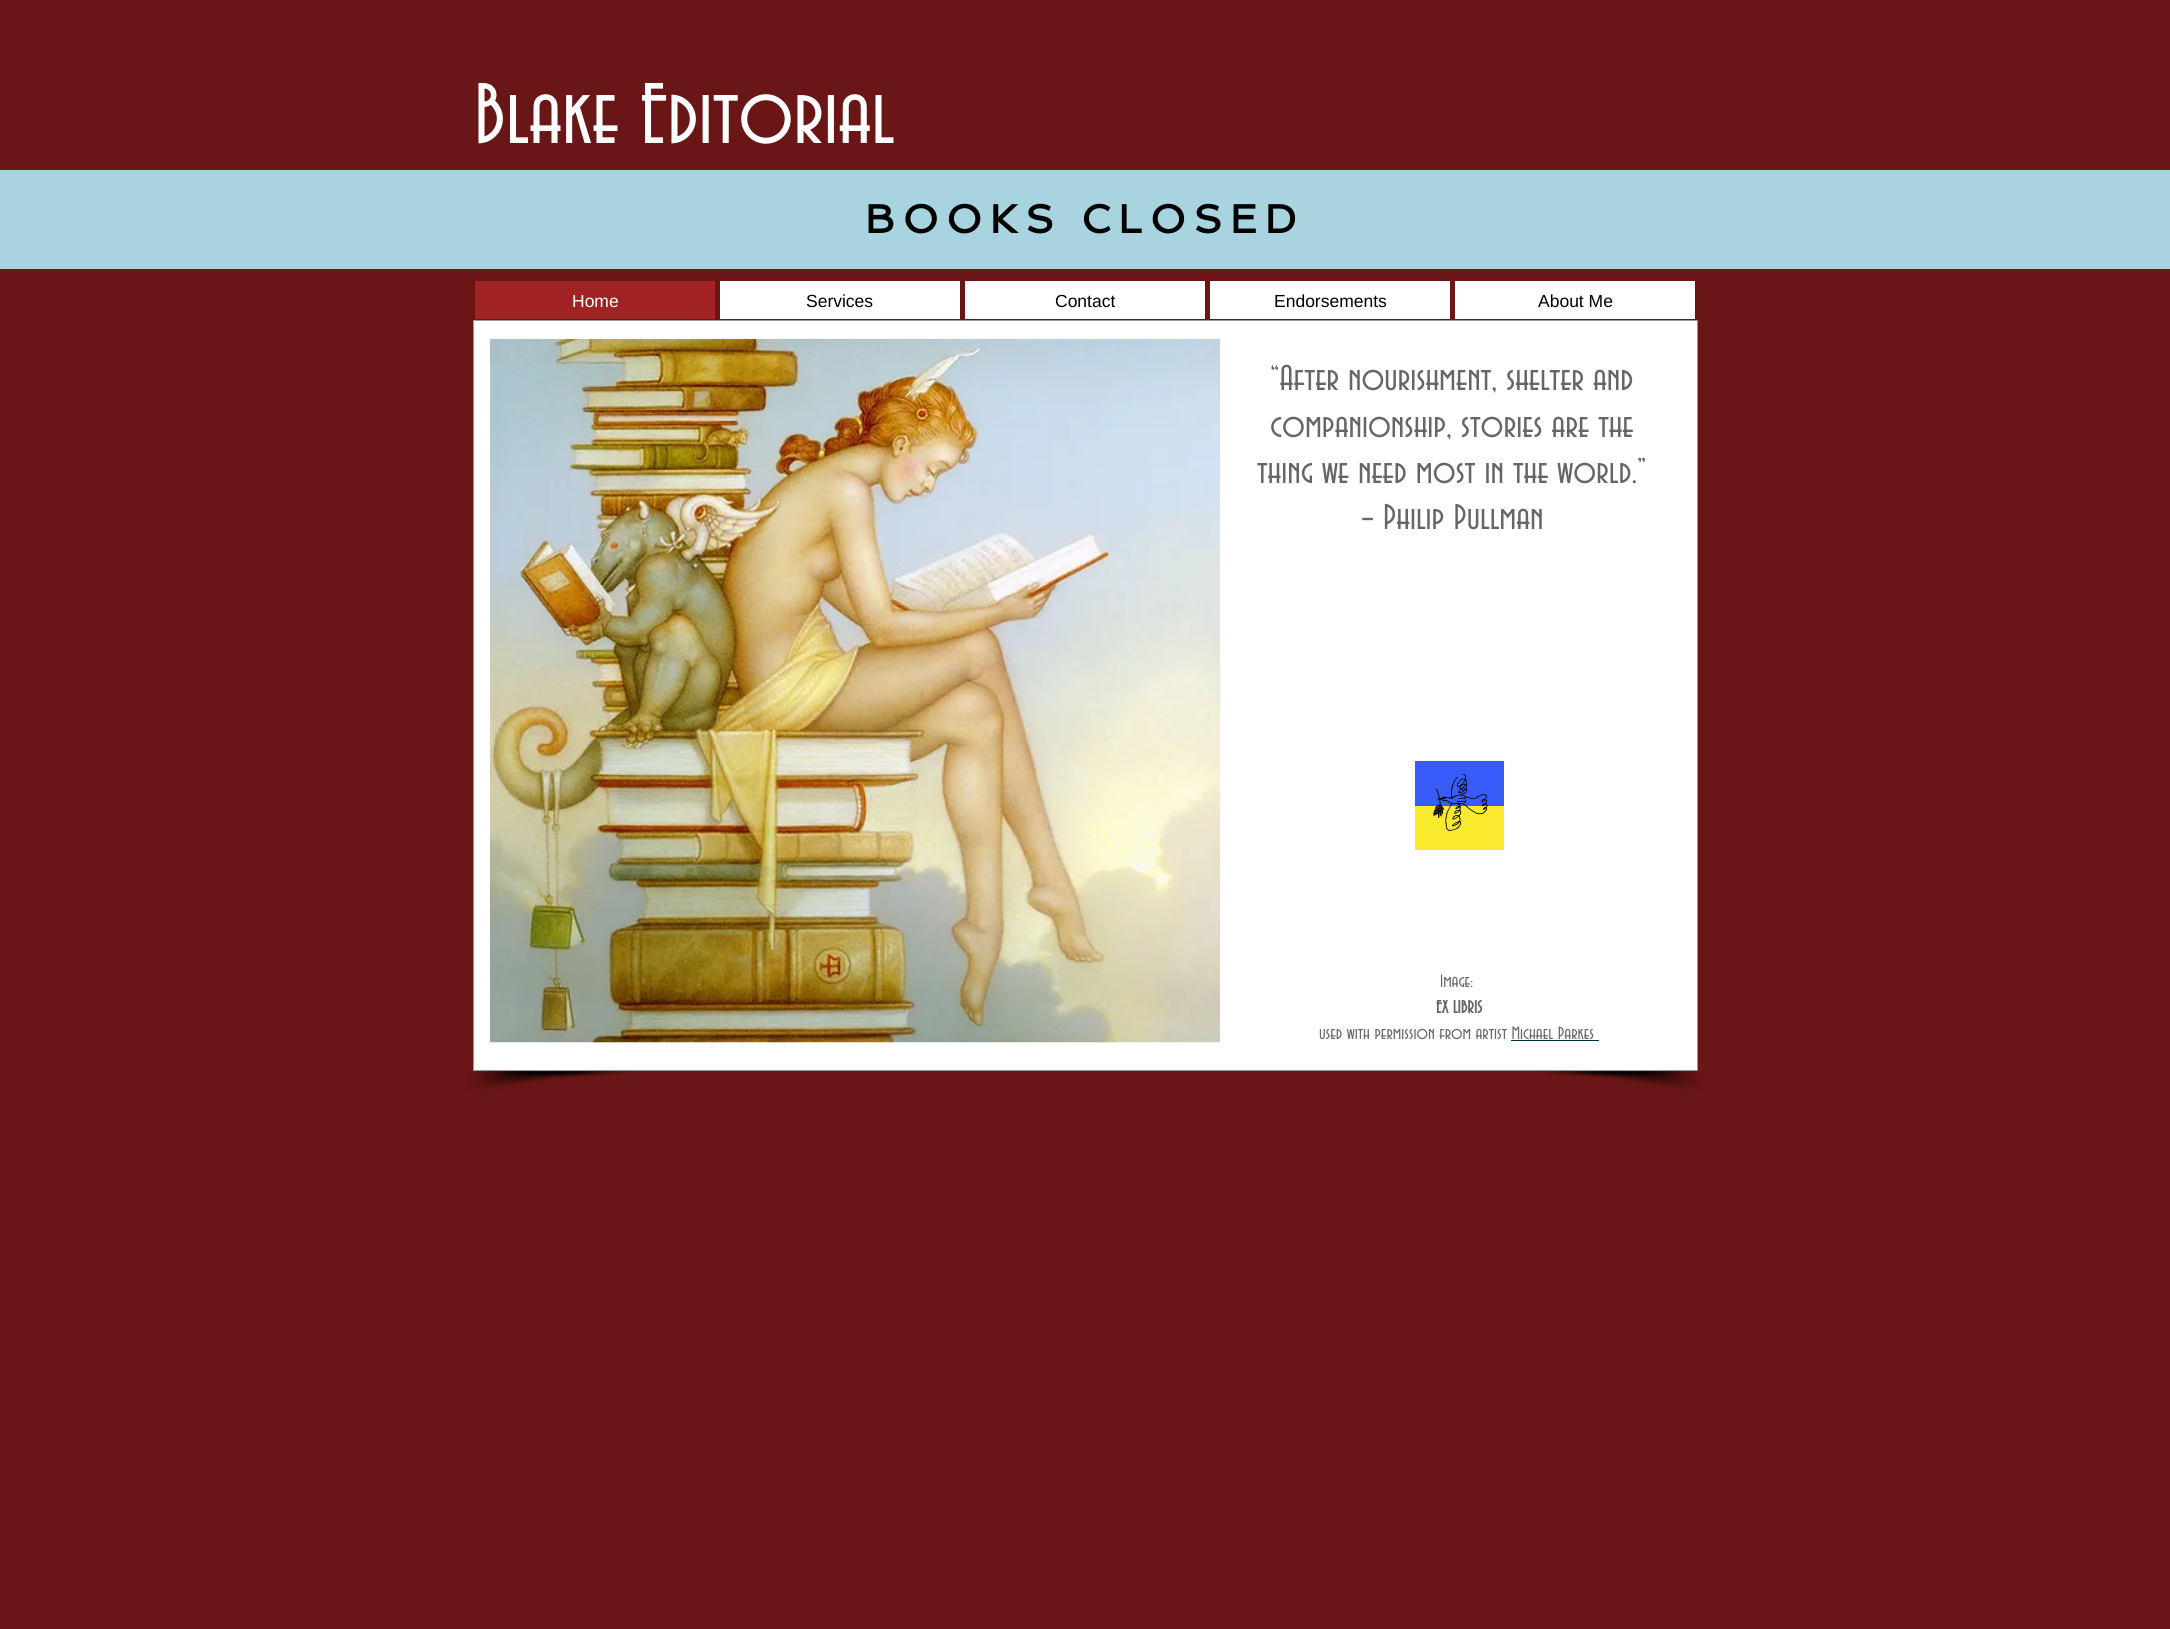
#include <cairo.h>
#include <math.h>
#include <stddef.h>

static cairo_t *ctx;

static void use_color(int r, int g, int b) {
    cairo_set_source_rgb(ctx, r / 255.0, g / 255.0, b / 255.0);
}

static void spaced_text(double x, double y, const char *s, double letter, double word) {
    cairo_move_to(ctx, x, y);
    while (*s) {
        char ch[5] = {0};
        int n = 0;
        do ch[n++] = *s++; while ((*s & 0xC0) == 0x80);
        cairo_show_text(ctx, ch);
        cairo_rel_move_to(ctx, letter + word * (*ch == ' '), 0);
    }
}

static void picture(const char *path, double x, double y, double w, double h) {
    cairo_surface_t *image = cairo_image_surface_create_from_png(path);
    cairo_save(ctx);
    cairo_set_source_surface(ctx, image, x, y);
    cairo_rectangle(ctx, x, y, w, h);
    cairo_fill(ctx);
    cairo_restore(ctx);
    cairo_surface_destroy(image);
}

int main(void) {
    cairo_surface_t *surface = cairo_image_surface_create(CAIRO_FORMAT_RGB24, 2170, 1629);
    ctx = cairo_create(surface);
    cairo_font_options_t *options = cairo_font_options_create();
    cairo_font_options_set_hint_metrics(options, CAIRO_HINT_METRICS_OFF);
    cairo_font_options_set_hint_style(options, CAIRO_HINT_STYLE_NONE);
    cairo_set_font_options(ctx, options);
    cairo_set_miter_limit(ctx, 4);
    use_color(107, 22, 22);
    cairo_paint(ctx);
    cairo_select_font_face(ctx, "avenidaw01", CAIRO_FONT_SLANT_NORMAL, CAIRO_FONT_WEIGHT_NORMAL);
    cairo_set_font_size(ctx, 90);
    use_color(255, 255, 255);
    cairo_move_to(ctx, 474, 143);
    cairo_show_text(ctx, "Blake Editorial");
    use_color(168, 212, 224);
    cairo_rectangle(ctx, 0, 170, 2170, 99);
    cairo_fill(ctx);
    cairo_select_font_face(ctx, "Spinnaker", CAIRO_FONT_SLANT_NORMAL, CAIRO_FONT_WEIGHT_BOLD);
    cairo_set_font_size(ctx, 40);
    use_color(0, 0, 0);
    spaced_text(865, 233, "BOOKS CLOSED", 8, 0);
    use_color(161, 34, 34);
    cairo_rectangle(ctx, 475, 281, 240, 38);
    cairo_fill(ctx);
    cairo_select_font_face(ctx, "Liberation Sans", CAIRO_FONT_SLANT_NORMAL, CAIRO_FONT_WEIGHT_NORMAL);
    cairo_set_font_size(ctx, 17.5);
    use_color(255, 255, 255);
    cairo_move_to(ctx, 572, 307);
    cairo_show_text(ctx, "Home");
    cairo_rectangle(ctx, 720, 281, 240, 38);
    cairo_fill(ctx);
    use_color(0, 0, 0);
    cairo_move_to(ctx, 806, 307);
    cairo_show_text(ctx, "Services");
    use_color(255, 255, 255);
    cairo_rectangle(ctx, 965, 281, 240, 38);
    cairo_fill(ctx);
    use_color(0, 0, 0);
    cairo_move_to(ctx, 1055, 307);
    cairo_show_text(ctx, "Contact");
    use_color(255, 255, 255);
    cairo_rectangle(ctx, 1210, 281, 240, 38);
    cairo_fill(ctx);
    use_color(0, 0, 0);
    cairo_move_to(ctx, 1274, 307);
    cairo_show_text(ctx, "Endorsements");
    use_color(255, 255, 255);
    cairo_rectangle(ctx, 1455, 281, 240, 38);
    cairo_fill(ctx);
    use_color(0, 0, 0);
    cairo_move_to(ctx, 1538, 307);
    cairo_show_text(ctx, "About Me");
    use_color(255, 255, 255);
    cairo_rectangle(ctx, 473.5, 320.5, 1224, 750);
    cairo_fill_preserve(ctx);
    use_color(153, 153, 153);
    cairo_set_line_width(ctx, 1);
    cairo_stroke(ctx);
    picture("img1.png", 466, 1071, 171, 20);
    picture("img2.png", 1533, 1071, 171, 20);
    picture("img3.png", 490, 338, 730, 705);
    cairo_select_font_face(ctx, "avenidaw01", CAIRO_FONT_SLANT_NORMAL, CAIRO_FONT_WEIGHT_NORMAL);
    cairo_set_font_size(ctx, 37.5);
    use_color(102, 102, 102);
    cairo_move_to(ctx, 1270, 390);
    cairo_show_text(ctx, "“After nourishment, shelter and");
    cairo_move_to(ctx, 1270, 437);
    cairo_show_text(ctx, "companionship, stories are the");
    cairo_move_to(ctx, 1257, 483);
    cairo_show_text(ctx, "thing we need most in the world.”");
    cairo_move_to(ctx, 1361, 529);
    cairo_show_text(ctx, "– Philip Pullman");
    picture("img4.png", 1415, 761, 89, 89);
    cairo_set_font_size(ctx, 18.75);
    cairo_move_to(ctx, 1440, 987);
    cairo_show_text(ctx, "Image:");
    cairo_select_font_face(ctx, "avenidaw01", CAIRO_FONT_SLANT_NORMAL, CAIRO_FONT_WEIGHT_BOLD);
    cairo_move_to(ctx, 1436, 1013);
    cairo_show_text(ctx, "EX LIBRIS");
    cairo_select_font_face(ctx, "avenidaw01", CAIRO_FONT_SLANT_NORMAL, CAIRO_FONT_WEIGHT_NORMAL);
    cairo_move_to(ctx, 1319, 1039);
    cairo_show_text(ctx, "used with permission from artist Michael Parkes");
    use_color(0, 51, 66);
    cairo_rectangle(ctx, 1511, 1040, 88, 1);
    cairo_fill(ctx);
    cairo_surface_write_to_png(surface, "result.png");
    cairo_font_options_destroy(options);
    cairo_destroy(ctx);
    cairo_surface_destroy(surface);
    return 0;
}
